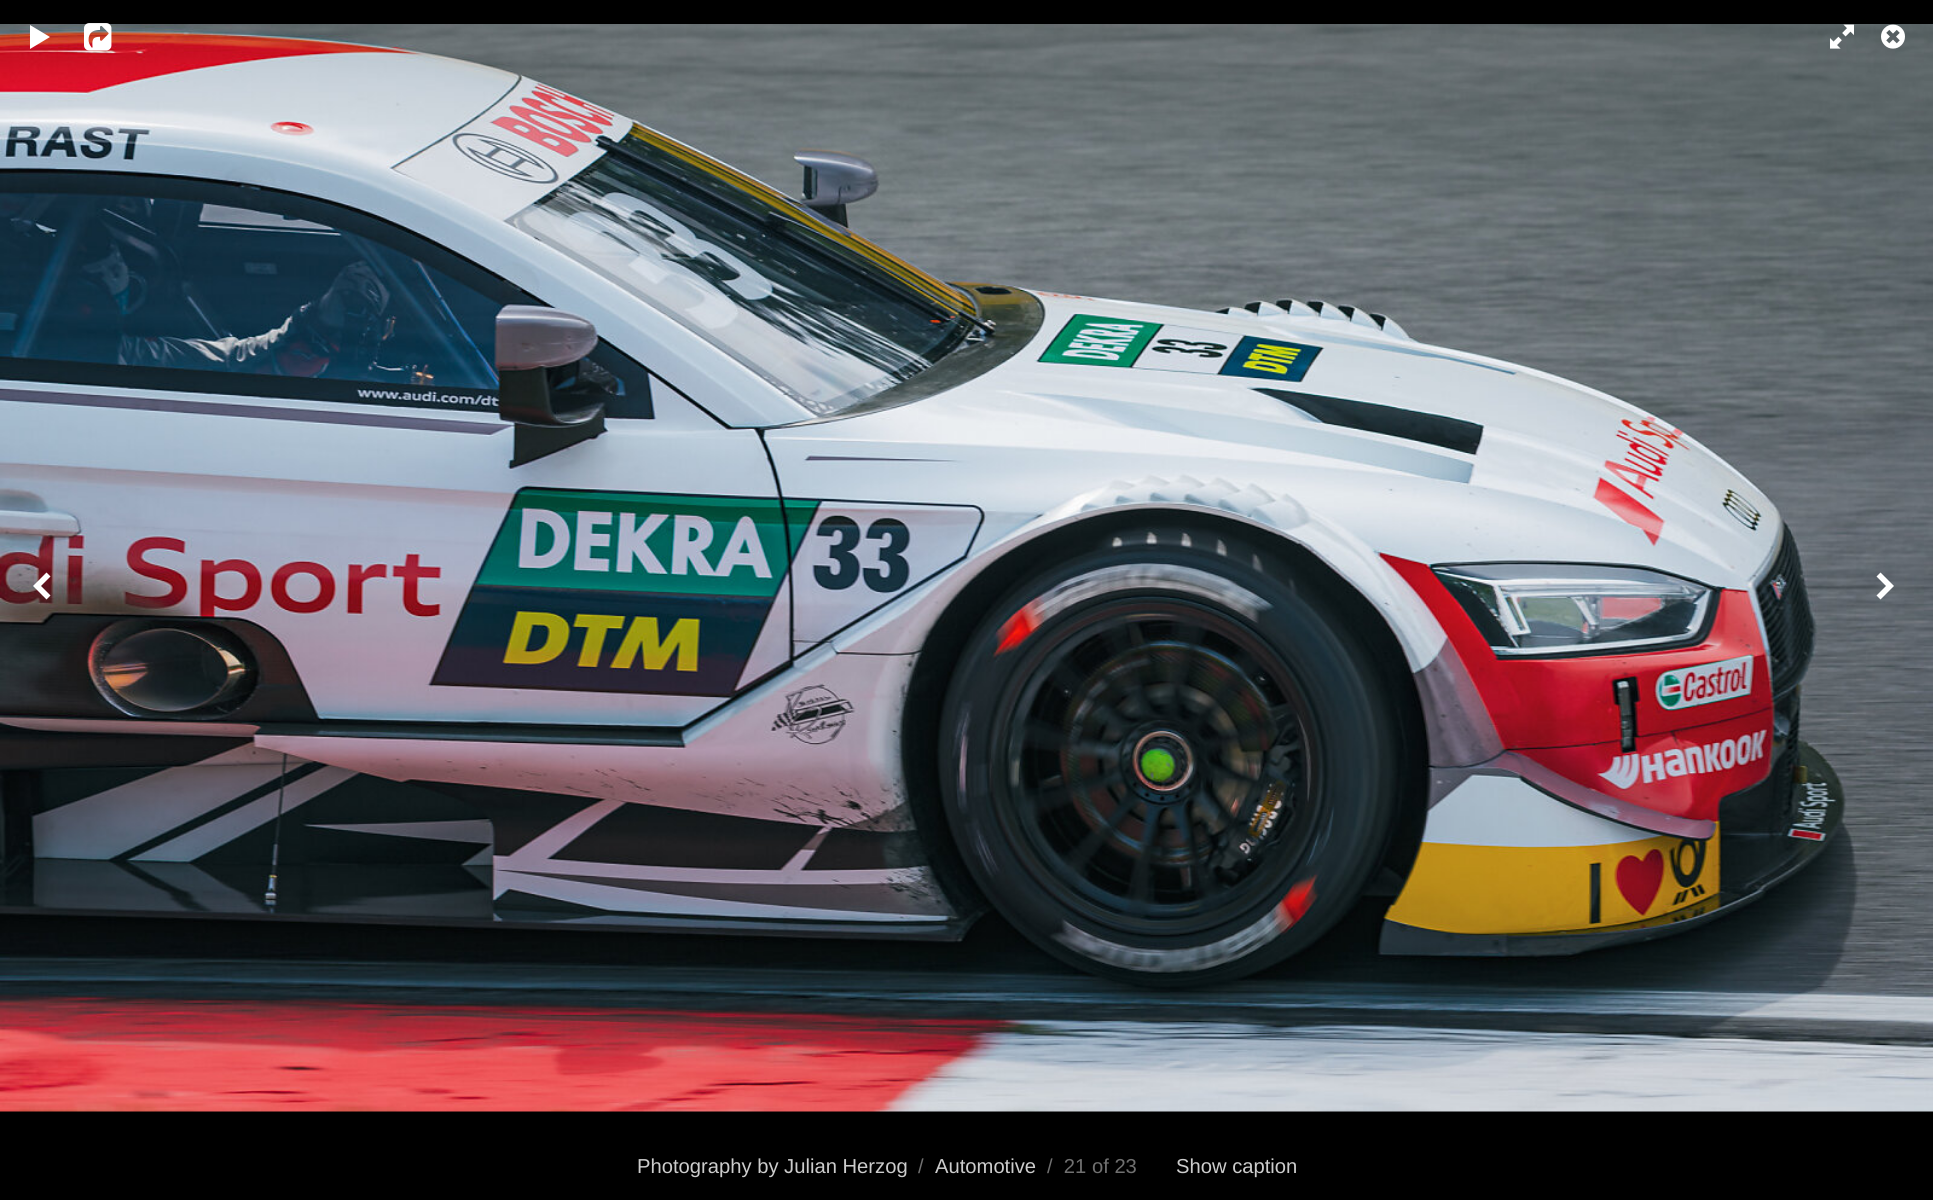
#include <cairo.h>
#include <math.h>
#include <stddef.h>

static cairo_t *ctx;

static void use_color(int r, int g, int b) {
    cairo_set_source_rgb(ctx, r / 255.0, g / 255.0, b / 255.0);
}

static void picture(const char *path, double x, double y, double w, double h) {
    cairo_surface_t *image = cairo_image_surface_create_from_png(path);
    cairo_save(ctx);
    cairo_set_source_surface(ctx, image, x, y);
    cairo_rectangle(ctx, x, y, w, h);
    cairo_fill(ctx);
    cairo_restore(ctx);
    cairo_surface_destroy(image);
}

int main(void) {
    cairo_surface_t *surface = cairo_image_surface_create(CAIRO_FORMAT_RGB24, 1933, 1200);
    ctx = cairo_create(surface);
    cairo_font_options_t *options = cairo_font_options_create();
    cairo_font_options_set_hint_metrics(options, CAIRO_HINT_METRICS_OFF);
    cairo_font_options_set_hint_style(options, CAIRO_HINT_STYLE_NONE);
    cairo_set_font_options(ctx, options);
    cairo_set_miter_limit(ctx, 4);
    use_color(0, 0, 0);
    cairo_paint(ctx);
    picture("img2.png", 0, 24, 1933, 1088);
    use_color(255, 255, 255);
    cairo_new_path(ctx);
    cairo_move_to(ctx, 30, 49);
    cairo_line_to(ctx, 30, 25);
    cairo_line_to(ctx, 50, 37);
    cairo_close_path(ctx);
    cairo_fill(ctx);
    picture("img1.png", 84, 23, 28, 28);
    picture("img3.png", 1830, 24, 24, 25);
    picture("img4.png", 1881, 24, 24, 25);
    cairo_new_path(ctx);
    cairo_move_to(ctx, 33, 586);
    cairo_line_to(ctx, 46.5, 572.5);
    cairo_line_to(ctx, 50.5, 576.5);
    cairo_line_to(ctx, 41, 586);
    cairo_line_to(ctx, 50.5, 595.5);
    cairo_line_to(ctx, 46.5, 599.5);
    cairo_close_path(ctx);
    cairo_fill(ctx);
    cairo_new_path(ctx);
    cairo_move_to(ctx, 1876.5, 595.5);
    cairo_line_to(ctx, 1886, 586);
    cairo_line_to(ctx, 1876.5, 576.5);
    cairo_line_to(ctx, 1880.5, 572.5);
    cairo_line_to(ctx, 1894, 586);
    cairo_line_to(ctx, 1880.5, 599.5);
    cairo_close_path(ctx);
    cairo_fill(ctx);
    cairo_select_font_face(ctx, "Liberation Sans", CAIRO_FONT_SLANT_NORMAL, CAIRO_FONT_WEIGHT_NORMAL);
    cairo_set_font_size(ctx, 20.2);
    use_color(204, 204, 204);
    cairo_move_to(ctx, 637, 1173);
    cairo_show_text(ctx, "Photography by Julian Herzog");
    use_color(112, 112, 112);
    cairo_move_to(ctx, 918, 1173);
    cairo_show_text(ctx, "/");
    use_color(204, 204, 204);
    cairo_move_to(ctx, 935, 1173);
    cairo_show_text(ctx, "Automotive");
    use_color(112, 112, 112);
    cairo_move_to(ctx, 1047, 1173);
    cairo_show_text(ctx, "/  21 of 23");
    use_color(204, 204, 204);
    cairo_move_to(ctx, 1176, 1173);
    cairo_show_text(ctx, "Show caption");
    cairo_surface_write_to_png(surface, "result.png");
    cairo_font_options_destroy(options);
    cairo_destroy(ctx);
    cairo_surface_destroy(surface);
    return 0;
}
